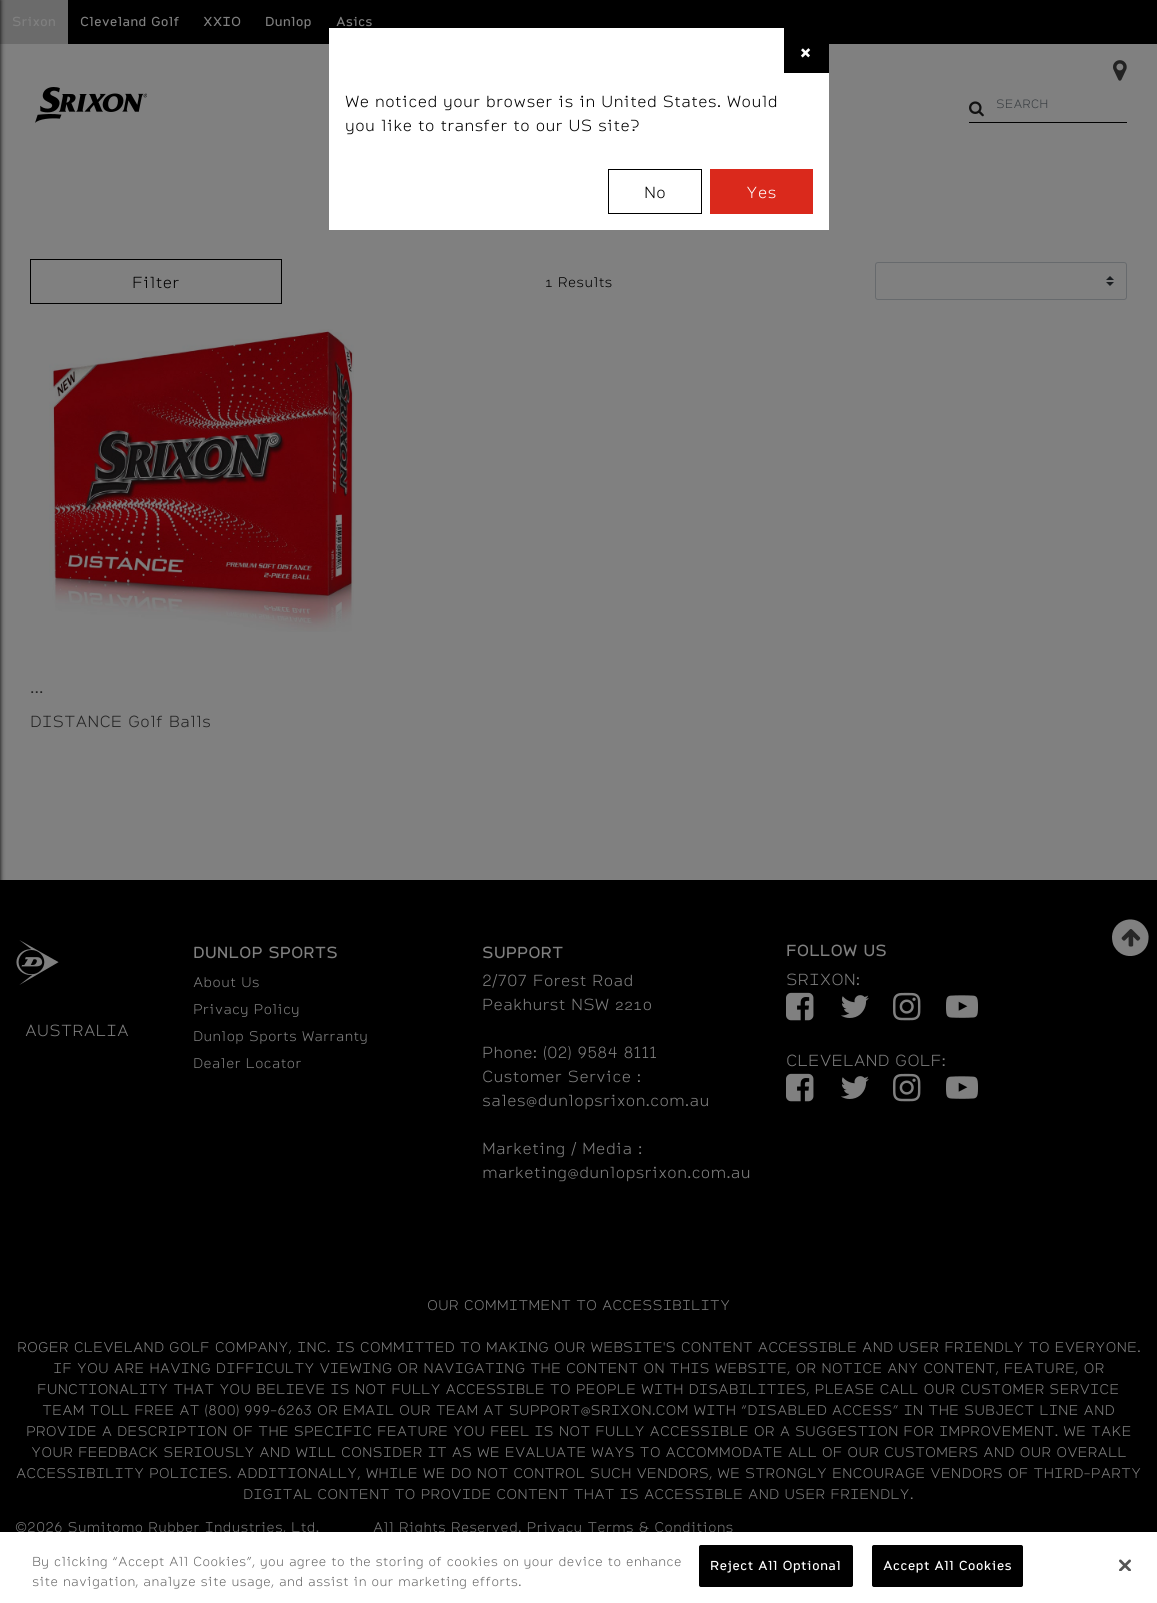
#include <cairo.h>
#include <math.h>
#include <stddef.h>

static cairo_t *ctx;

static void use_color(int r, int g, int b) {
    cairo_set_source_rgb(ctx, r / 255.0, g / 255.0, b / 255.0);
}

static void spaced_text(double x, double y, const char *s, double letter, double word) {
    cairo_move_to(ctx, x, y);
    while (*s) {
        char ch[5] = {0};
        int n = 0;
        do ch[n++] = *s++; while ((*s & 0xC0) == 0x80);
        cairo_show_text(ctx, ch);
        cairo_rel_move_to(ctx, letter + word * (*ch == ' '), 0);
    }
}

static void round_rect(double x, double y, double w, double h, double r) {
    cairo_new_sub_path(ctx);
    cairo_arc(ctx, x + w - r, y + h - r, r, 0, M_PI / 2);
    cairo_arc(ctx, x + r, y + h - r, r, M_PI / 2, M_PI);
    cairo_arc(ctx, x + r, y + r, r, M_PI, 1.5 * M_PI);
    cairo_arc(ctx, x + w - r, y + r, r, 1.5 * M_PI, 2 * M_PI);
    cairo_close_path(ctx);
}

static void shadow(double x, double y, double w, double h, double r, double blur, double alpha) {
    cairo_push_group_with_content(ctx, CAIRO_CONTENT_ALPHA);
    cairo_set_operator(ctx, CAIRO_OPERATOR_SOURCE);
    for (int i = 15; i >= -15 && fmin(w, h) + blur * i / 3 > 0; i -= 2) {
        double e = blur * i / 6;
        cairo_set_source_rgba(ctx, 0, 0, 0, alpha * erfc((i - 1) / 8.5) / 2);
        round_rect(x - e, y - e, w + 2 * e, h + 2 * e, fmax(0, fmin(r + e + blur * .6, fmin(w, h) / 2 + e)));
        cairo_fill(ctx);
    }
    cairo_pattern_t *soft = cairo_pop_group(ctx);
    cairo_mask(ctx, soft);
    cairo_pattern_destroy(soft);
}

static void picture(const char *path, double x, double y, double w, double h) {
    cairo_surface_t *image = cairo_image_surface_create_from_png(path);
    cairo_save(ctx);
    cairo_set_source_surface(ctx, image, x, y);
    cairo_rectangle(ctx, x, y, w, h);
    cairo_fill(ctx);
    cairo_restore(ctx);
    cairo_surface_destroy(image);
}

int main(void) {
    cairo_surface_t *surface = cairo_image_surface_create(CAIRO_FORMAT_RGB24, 1157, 1603);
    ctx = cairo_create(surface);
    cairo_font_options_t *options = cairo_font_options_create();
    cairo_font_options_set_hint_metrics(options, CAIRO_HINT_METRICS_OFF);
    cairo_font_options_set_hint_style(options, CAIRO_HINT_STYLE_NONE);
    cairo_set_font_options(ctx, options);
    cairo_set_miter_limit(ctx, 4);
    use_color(128, 128, 128);
    cairo_paint(ctx);
    use_color(0, 0, 0);
    cairo_rectangle(ctx, 68, 0, 1089, 44);
    cairo_fill(ctx);
    use_color(107, 107, 107);
    cairo_rectangle(ctx, 0, 0, 68, 44);
    cairo_fill(ctx);
    cairo_select_font_face(ctx, "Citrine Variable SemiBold", CAIRO_FONT_SLANT_NORMAL, CAIRO_FONT_WEIGHT_NORMAL);
    cairo_set_font_size(ctx, 13);
    use_color(128, 128, 128);
    cairo_move_to(ctx, 12, 26);
    cairo_show_text(ctx, "Srixon");
    cairo_move_to(ctx, 80, 26);
    cairo_show_text(ctx, "Cleveland Golf");
    cairo_move_to(ctx, 203, 26);
    cairo_show_text(ctx, "XXIO");
    cairo_move_to(ctx, 265, 26);
    cairo_show_text(ctx, "Dunlop");
    cairo_move_to(ctx, 336, 26);
    cairo_show_text(ctx, "Asics");
    picture("img1.png", 35, 87, 112, 36);
    picture("img2.png", 1113, 60, 14, 21);
    picture("img3.png", 969, 101, 15, 16);
    use_color(0, 0, 0);
    cairo_rectangle(ctx, 969, 122, 158, 1);
    cairo_fill(ctx);
    cairo_select_font_face(ctx, "Citrine Variable", CAIRO_FONT_SLANT_NORMAL, CAIRO_FONT_WEIGHT_NORMAL);
    cairo_set_font_size(ctx, 12);
    use_color(54, 59, 63);
    cairo_move_to(ctx, 996, 108);
    cairo_show_text(ctx, "SEARCH");
    use_color(255, 255, 255);
    cairo_rectangle(ctx, 329, 28, 500, 202);
    cairo_fill(ctx);
    use_color(0, 0, 0);
    cairo_rectangle(ctx, 784, 28, 45, 45);
    cairo_fill(ctx);
    cairo_select_font_face(ctx, "Citrine Variable", CAIRO_FONT_SLANT_NORMAL, CAIRO_FONT_WEIGHT_BOLD);
    cairo_set_font_size(ctx, 24);
    use_color(255, 255, 255);
    cairo_move_to(ctx, 799, 60);
    cairo_show_text(ctx, "×");
    cairo_select_font_face(ctx, "Citrine Variable", CAIRO_FONT_SLANT_NORMAL, CAIRO_FONT_WEIGHT_NORMAL);
    cairo_set_font_size(ctx, 16);
    use_color(0, 0, 0);
    cairo_move_to(ctx, 345, 107);
    cairo_show_text(ctx, "We noticed your browser is in United States. Would");
    cairo_move_to(ctx, 345, 131);
    cairo_show_text(ctx, "you like to transfer to our US site?");
    cairo_rectangle(ctx, 608.5, 169.5, 93, 44);
    cairo_set_line_width(ctx, 1);
    cairo_stroke(ctx);
    cairo_move_to(ctx, 644, 198);
    cairo_show_text(ctx, "No");
    use_color(218, 41, 28);
    cairo_rectangle(ctx, 710, 169, 103, 45);
    cairo_fill(ctx);
    use_color(255, 255, 255);
    cairo_move_to(ctx, 746, 198);
    cairo_show_text(ctx, "Yes");
    use_color(0, 0, 0);
    cairo_rectangle(ctx, 0, 880, 1157, 652);
    cairo_fill(ctx);
    use_color(0, 0, 0);
    shadow(-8, 0, 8, 1603, 0, 2.5, 1);
    cairo_rectangle(ctx, 30.5, 259.5, 251, 44);
    use_color(0, 0, 0);
    cairo_stroke(ctx);
    cairo_move_to(ctx, 132, 288);
    cairo_show_text(ctx, "Filter");
    cairo_set_font_size(ctx, 14);
    cairo_move_to(ctx, 545, 287);
    cairo_show_text(ctx, "1 Results");
    picture("img4.png", 1106, 276, 8, 10);
    round_rect(875.5, 262.5, 251, 37, 2.5);
    use_color(103, 106, 109);
    cairo_stroke(ctx);
    picture("img5.png", 49, 329, 305, 303);
    cairo_set_font_size(ctx, 16);
    use_color(34, 34, 34);
    cairo_move_to(ctx, 30, 693);
    cairo_show_text(ctx, "...");
    cairo_move_to(ctx, 30, 727);
    cairo_show_text(ctx, "DISTANCE Golf Balls");
    use_color(128, 128, 128);
    cairo_new_path(ctx);
    cairo_move_to(ctx, 1146, 928.5);
    cairo_curve_to(ctx, 1148, 931.5, 1149, 935.5, 1148.5, 939);
    cairo_curve_to(ctx, 1147.5, 957, 1123.5, 962.5, 1114.5, 947);
    cairo_curve_to(ctx, 1112.5, 944, 1112, 940, 1112, 936.5);
    cairo_curve_to(ctx, 1113, 918.5, 1137, 913, 1146, 928.5);
    cairo_close_path(ctx);
    cairo_fill(ctx);
    picture("img6.png", 1121, 929, 20, 18);
    picture("img7.png", 16, 940, 43, 45);
    cairo_move_to(ctx, 25, 1036);
    cairo_show_text(ctx, "AUSTRALIA");
    cairo_select_font_face(ctx, "Citrine Variable SemiBold", CAIRO_FONT_SLANT_NORMAL, CAIRO_FONT_WEIGHT_NORMAL);
    cairo_move_to(ctx, 193, 958);
    cairo_show_text(ctx, "DUNLOP SPORTS");
    cairo_select_font_face(ctx, "Citrine Variable", CAIRO_FONT_SLANT_NORMAL, CAIRO_FONT_WEIGHT_NORMAL);
    cairo_set_font_size(ctx, 14);
    cairo_move_to(ctx, 193, 987);
    cairo_show_text(ctx, "About Us");
    cairo_move_to(ctx, 193, 1014);
    cairo_show_text(ctx, "Privacy Policy");
    cairo_move_to(ctx, 193, 1041);
    cairo_show_text(ctx, "Dunlop Sports Warranty");
    cairo_move_to(ctx, 193, 1068);
    cairo_show_text(ctx, "Dealer Locator");
    cairo_select_font_face(ctx, "Citrine Variable SemiBold", CAIRO_FONT_SLANT_NORMAL, CAIRO_FONT_WEIGHT_NORMAL);
    cairo_set_font_size(ctx, 16);
    cairo_move_to(ctx, 482, 958);
    cairo_show_text(ctx, "SUPPORT");
    cairo_select_font_face(ctx, "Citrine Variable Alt", CAIRO_FONT_SLANT_NORMAL, CAIRO_FONT_WEIGHT_NORMAL);
    cairo_move_to(ctx, 482, 986);
    cairo_show_text(ctx, "2/707 Forest Road");
    cairo_select_font_face(ctx, "Citrine Variable", CAIRO_FONT_SLANT_NORMAL, CAIRO_FONT_WEIGHT_NORMAL);
    cairo_move_to(ctx, 482, 1010);
    cairo_show_text(ctx, "Peakhurst NSW 2210");
    cairo_select_font_face(ctx, "Citrine Variable Alt", CAIRO_FONT_SLANT_NORMAL, CAIRO_FONT_WEIGHT_NORMAL);
    cairo_move_to(ctx, 482, 1058);
    cairo_show_text(ctx, "Phone: (02) 9584 8111");
    cairo_select_font_face(ctx, "Citrine Variable", CAIRO_FONT_SLANT_NORMAL, CAIRO_FONT_WEIGHT_NORMAL);
    cairo_move_to(ctx, 482, 1082);
    cairo_show_text(ctx, "Customer Service :");
    cairo_move_to(ctx, 482, 1106);
    cairo_show_text(ctx, "sales@dunlopsrixon.com.au");
    cairo_move_to(ctx, 482, 1154);
    cairo_show_text(ctx, "Marketing / Media :");
    cairo_move_to(ctx, 482, 1178);
    cairo_show_text(ctx, "marketing@dunlopsrixon.com.au");
    cairo_select_font_face(ctx, "Citrine Variable SemiBold", CAIRO_FONT_SLANT_NORMAL, CAIRO_FONT_WEIGHT_NORMAL);
    cairo_move_to(ctx, 786, 956);
    cairo_show_text(ctx, "FOLLOW US");
    cairo_select_font_face(ctx, "Citrine Variable", CAIRO_FONT_SLANT_NORMAL, CAIRO_FONT_WEIGHT_NORMAL);
    cairo_move_to(ctx, 786, 985);
    cairo_show_text(ctx, "SRIXON:");
    picture("img8.png", 786, 992, 28, 29);
    picture("img9.png", 841, 995, 28, 23);
    picture("img10.png", 893, 992, 28, 29);
    picture("img11.png", 946, 995, 32, 23);
    cairo_move_to(ctx, 786, 1066);
    cairo_show_text(ctx, "CLEVELAND GOLF:");
    picture("img8.png", 786, 1073, 28, 29);
    picture("img9.png", 841, 1076, 28, 23);
    picture("img10.png", 893, 1073, 28, 29);
    picture("img11.png", 946, 1076, 32, 23);
    cairo_set_font_size(ctx, 14);
    cairo_move_to(ctx, 427, 1310);
    cairo_show_text(ctx, "OUR COMMITMENT TO ACCESSIBILITY");
    cairo_move_to(ctx, 17, 1352);
    cairo_show_text(ctx, "ROGER CLEVELAND GOLF COMPANY, INC. IS COMMITTED TO MAKING OUR WEBSITE'S CONTENT ACCESSIBLE AND USER FRIENDLY TO EVERYONE.");
    cairo_move_to(ctx, 53, 1373);
    cairo_show_text(ctx, "IF YOU ARE HAVING DIFFICULTY VIEWING OR NAVIGATING THE CONTENT ON THIS WEBSITE, OR NOTICE ANY CONTENT, FEATURE, OR");
    cairo_move_to(ctx, 37, 1394);
    cairo_show_text(ctx, "FUNCTIONALITY THAT YOU BELIEVE IS NOT FULLY ACCESSIBLE TO PEOPLE WITH DISABILITIES, PLEASE CALL OUR CUSTOMER SERVICE");
    cairo_select_font_face(ctx, "Citrine Variable Alt", CAIRO_FONT_SLANT_NORMAL, CAIRO_FONT_WEIGHT_NORMAL);
    cairo_move_to(ctx, 42, 1415);
    cairo_show_text(ctx, "TEAM TOLL FREE AT (800) 999-6263 OR EMAIL OUR TEAM AT SUPPORT@SRIXON.COM WITH “DISABLED ACCESS” IN THE SUBJECT LINE AND");
    cairo_select_font_face(ctx, "Citrine Variable", CAIRO_FONT_SLANT_NORMAL, CAIRO_FONT_WEIGHT_NORMAL);
    cairo_move_to(ctx, 26, 1436);
    cairo_show_text(ctx, "PROVIDE A DESCRIPTION OF THE SPECIFIC FEATURE YOU FEEL IS NOT FULLY ACCESSIBLE OR A SUGGESTION FOR IMPROVEMENT. WE TAKE");
    cairo_move_to(ctx, 31, 1457);
    cairo_show_text(ctx, "YOUR FEEDBACK SERIOUSLY AND WILL CONSIDER IT AS WE EVALUATE WAYS TO ACCOMMODATE ALL OF OUR CUSTOMERS AND OUR OVERALL");
    cairo_move_to(ctx, 16, 1478);
    cairo_show_text(ctx, "ACCESSIBILITY POLICIES. ADDITIONALLY, WHILE WE DO NOT CONTROL SUCH VENDORS, WE STRONGLY ENCOURAGE VENDORS OF THIRD-PARTY");
    cairo_move_to(ctx, 243, 1499);
    cairo_show_text(ctx, "DIGITAL CONTENT TO PROVIDE CONTENT THAT IS ACCESSIBLE AND USER FRIENDLY.");
    cairo_select_font_face(ctx, "Citrine Variable Alt", CAIRO_FONT_SLANT_NORMAL, CAIRO_FONT_WEIGHT_NORMAL);
    cairo_move_to(ctx, 15, 1532);
    cairo_show_text(ctx, "©2026 Sumitomo Rubber Industries, Ltd.");
    cairo_select_font_face(ctx, "Citrine Variable", CAIRO_FONT_SLANT_NORMAL, CAIRO_FONT_WEIGHT_NORMAL);
    cairo_move_to(ctx, 373, 1532);
    cairo_show_text(ctx, "All Rights Reserved. Privacy Terms & Conditions");
    use_color(0, 0, 0);
    shadow(0, 1532, 1157, 71, 0, 9, 0.2);
    use_color(255, 255, 255);
    cairo_rectangle(ctx, 0, 1532, 1157, 71);
    cairo_fill(ctx);
    cairo_set_font_size(ctx, 13);
    use_color(105, 105, 105);
    cairo_move_to(ctx, 32, 1566);
    cairo_show_text(ctx, "By clicking “Accept All Cookies”, you agree to the storing of cookies on your device to enhance");
    cairo_move_to(ctx, 32, 1586);
    cairo_show_text(ctx, "site navigation, analyze site usage, and assist in our marketing efforts.");
    use_color(0, 0, 0);
    round_rect(699.5, 1545.5, 153, 41, 1.5);
    cairo_fill_preserve(ctx);
    cairo_stroke(ctx);
    cairo_select_font_face(ctx, "Citrine Variable SemiBold", CAIRO_FONT_SLANT_NORMAL, CAIRO_FONT_WEIGHT_NORMAL);
    use_color(255, 255, 255);
    spaced_text(710, 1570, "Reject All Optional", 0.1, 0);
    use_color(0, 0, 0);
    round_rect(872.5, 1545.5, 150, 41, 1.5);
    cairo_fill_preserve(ctx);
    cairo_stroke(ctx);
    use_color(255, 255, 255);
    spaced_text(883, 1570, "Accept All Cookies", 0.1, 0);
    picture("img12.png", 1119, 1559, 12, 12);
    cairo_surface_write_to_png(surface, "result.png");
    cairo_font_options_destroy(options);
    cairo_destroy(ctx);
    cairo_surface_destroy(surface);
    return 0;
}
